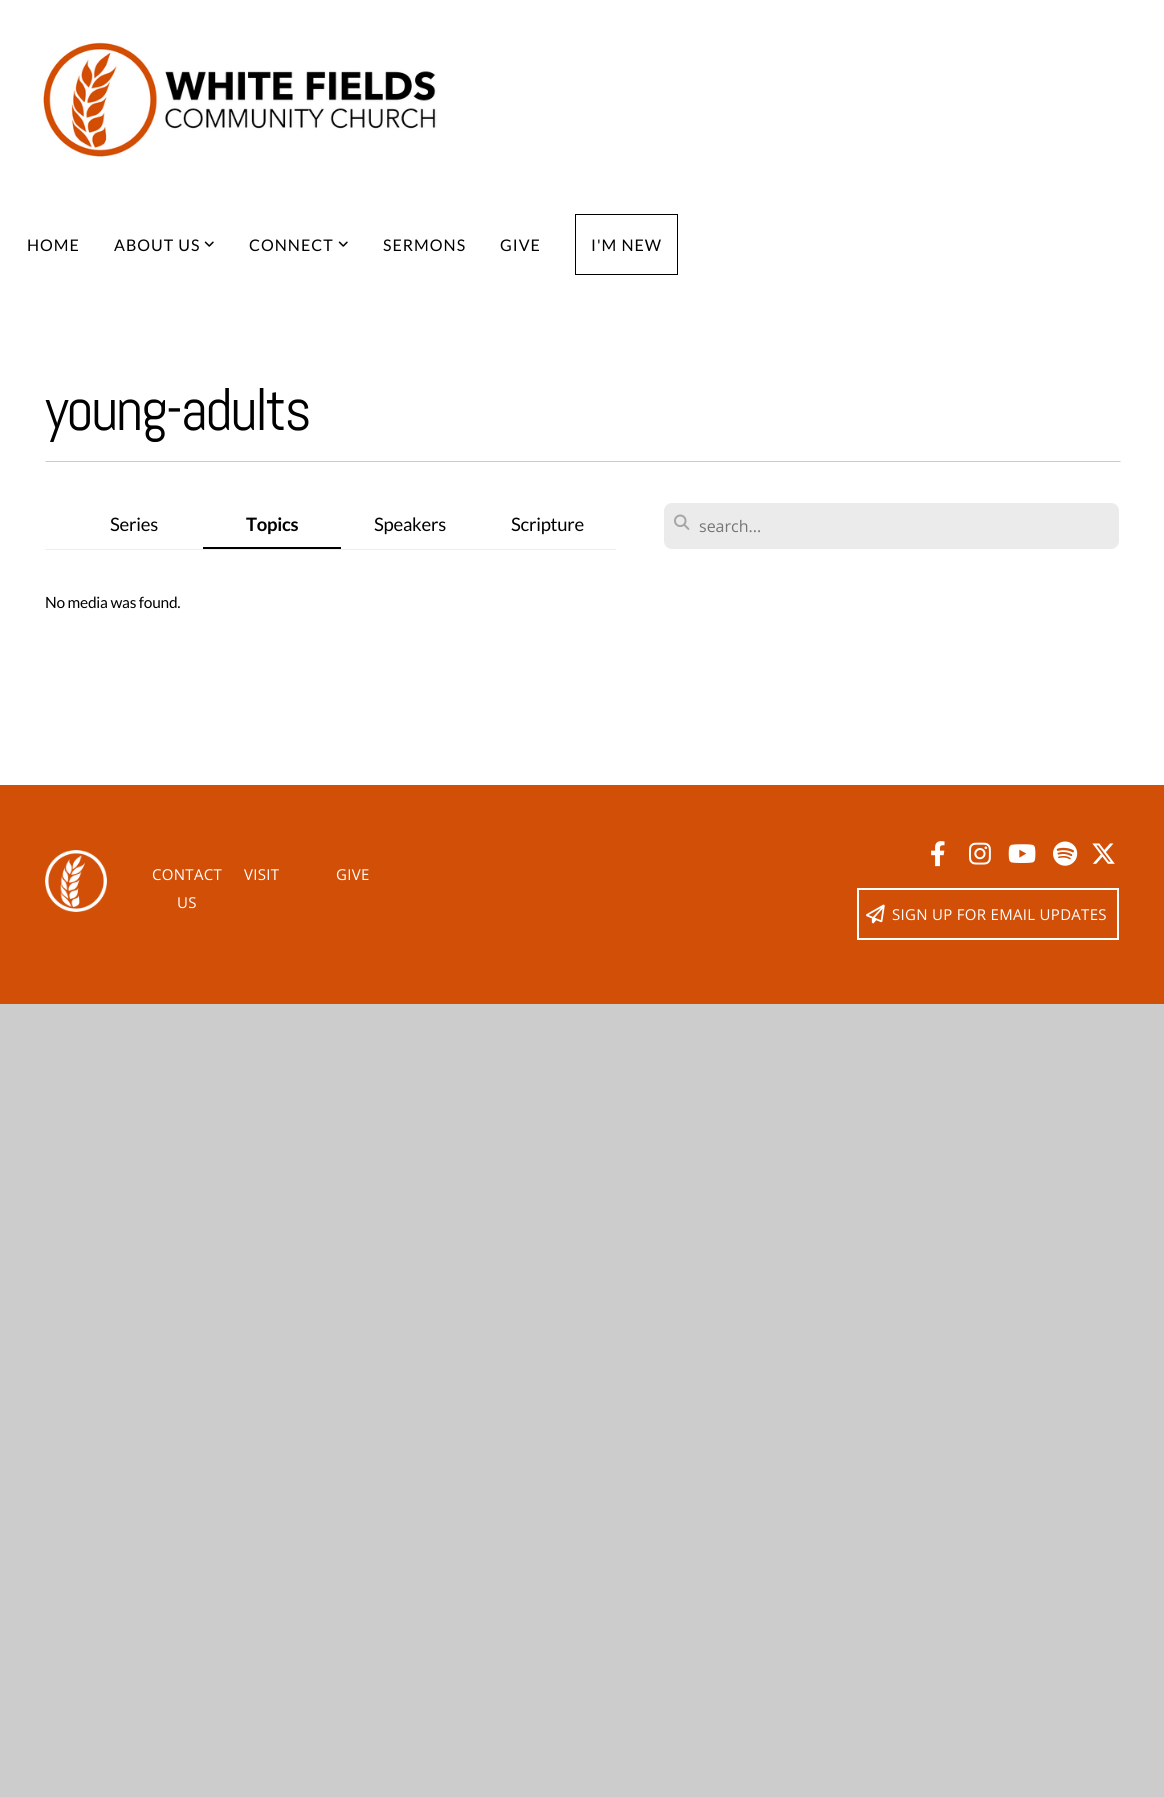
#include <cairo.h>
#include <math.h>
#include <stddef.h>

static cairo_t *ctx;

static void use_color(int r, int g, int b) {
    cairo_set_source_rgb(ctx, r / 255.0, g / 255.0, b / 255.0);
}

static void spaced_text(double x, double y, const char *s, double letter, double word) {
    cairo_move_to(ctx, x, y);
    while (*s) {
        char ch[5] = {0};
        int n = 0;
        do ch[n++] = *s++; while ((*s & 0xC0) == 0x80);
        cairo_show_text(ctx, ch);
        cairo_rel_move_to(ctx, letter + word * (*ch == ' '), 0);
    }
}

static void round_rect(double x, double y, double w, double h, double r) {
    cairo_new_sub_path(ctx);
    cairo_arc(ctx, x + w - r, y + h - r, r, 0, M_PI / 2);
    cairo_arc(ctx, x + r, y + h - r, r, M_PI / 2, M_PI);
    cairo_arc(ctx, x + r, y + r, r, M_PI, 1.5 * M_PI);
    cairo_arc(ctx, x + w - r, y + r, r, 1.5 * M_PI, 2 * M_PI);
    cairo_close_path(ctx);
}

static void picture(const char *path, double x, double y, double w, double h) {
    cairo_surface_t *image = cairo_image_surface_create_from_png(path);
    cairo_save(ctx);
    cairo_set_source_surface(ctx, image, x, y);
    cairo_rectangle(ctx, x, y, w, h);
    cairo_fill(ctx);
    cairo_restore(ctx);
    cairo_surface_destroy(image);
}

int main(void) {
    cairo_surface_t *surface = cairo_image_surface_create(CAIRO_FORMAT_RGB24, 1164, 1797);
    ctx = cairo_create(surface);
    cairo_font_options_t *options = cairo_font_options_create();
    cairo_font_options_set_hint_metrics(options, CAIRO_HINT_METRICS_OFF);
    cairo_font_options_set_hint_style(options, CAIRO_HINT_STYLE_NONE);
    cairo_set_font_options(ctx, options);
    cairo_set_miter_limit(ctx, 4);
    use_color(204, 204, 204);
    cairo_paint(ctx);
    use_color(255, 255, 255);
    cairo_rectangle(ctx, 0, 0, 1164, 785);
    cairo_fill(ctx);
    picture("img1.png", 43, 42, 394, 115);
    cairo_select_font_face(ctx, "Lato", CAIRO_FONT_SLANT_NORMAL, CAIRO_FONT_WEIGHT_NORMAL);
    cairo_set_font_size(ctx, 16);
    use_color(0, 0, 0);
    spaced_text(27, 251, "HOME", 1, 0);
    spaced_text(114, 251, "ABOUT US", 1, 0);
    picture("img2.png", 204, 241, 10, 6);
    spaced_text(249, 251, "CONNECT", 1, 0);
    picture("img2.png", 338, 241, 10, 6);
    spaced_text(383, 251, "SERMONS", 1, 0);
    spaced_text(500, 251, "GIVE", 1, 0);
    cairo_rectangle(ctx, 575.5, 214.5, 102, 60);
    cairo_set_line_width(ctx, 1);
    cairo_stroke(ctx);
    spaced_text(591, 251, "I'M NEW", 1, 0);
    cairo_select_font_face(ctx, "Abel", CAIRO_FONT_SLANT_NORMAL, CAIRO_FONT_WEIGHT_NORMAL);
    cairo_set_font_size(ctx, 60);
    spaced_text(45, 430, "young-adults", -2.4, 0);
    use_color(204, 204, 204);
    cairo_new_path(ctx);
    cairo_move_to(ctx, 1121, 462);
    cairo_line_to(ctx, 45, 462);
    cairo_line_to(ctx, 46, 461);
    cairo_line_to(ctx, 1120, 461);
    cairo_close_path(ctx);
    cairo_fill(ctx);
    use_color(237, 238, 240);
    cairo_rectangle(ctx, 45, 549, 571, 1);
    cairo_fill(ctx);
    cairo_select_font_face(ctx, "Lato", CAIRO_FONT_SLANT_NORMAL, CAIRO_FONT_WEIGHT_NORMAL);
    cairo_set_font_size(ctx, 18.5);
    use_color(0, 0, 0);
    spaced_text(110, 531, "Series", -0.25, 0);
    cairo_rectangle(ctx, 203, 547, 138, 2);
    cairo_fill(ctx);
    cairo_select_font_face(ctx, "Lato", CAIRO_FONT_SLANT_NORMAL, CAIRO_FONT_WEIGHT_BOLD);
    spaced_text(246, 531, "Topics", -0.25, 0);
    cairo_select_font_face(ctx, "Lato", CAIRO_FONT_SLANT_NORMAL, CAIRO_FONT_WEIGHT_NORMAL);
    spaced_text(374, 531, "Speakers", -0.25, 0);
    spaced_text(511, 531, "Scripture", -0.25, 0);
    use_color(235, 235, 235);
    round_rect(664, 503, 455, 46, 8);
    cairo_fill(ctx);
    picture("img3.png", 674, 514, 16, 16);
    cairo_select_font_face(ctx, "Open Sans", CAIRO_FONT_SLANT_NORMAL, CAIRO_FONT_WEIGHT_NORMAL);
    cairo_set_font_size(ctx, 16);
    use_color(118, 118, 118);
    cairo_move_to(ctx, 699, 532);
    cairo_show_text(ctx, "search...");
    cairo_select_font_face(ctx, "Lato", CAIRO_FONT_SLANT_NORMAL, CAIRO_FONT_WEIGHT_NORMAL);
    cairo_set_font_size(ctx, 15.5);
    use_color(0, 0, 0);
    spaced_text(45, 608, "No media was found.", -0.25, 0);
    use_color(210, 79, 8);
    cairo_rectangle(ctx, 0, 785, 1164, 219);
    cairo_fill(ctx);
    picture("img4.png", 45, 850, 62, 62);
    cairo_select_font_face(ctx, "Open Sans", CAIRO_FONT_SLANT_NORMAL, CAIRO_FONT_WEIGHT_NORMAL);
    cairo_set_font_size(ctx, 15);
    use_color(255, 255, 255);
    spaced_text(152, 880, "CONTACT", 0.3, 0);
    spaced_text(177, 908, "US", 0.3, 0);
    spaced_text(244, 880, "VISIT", 0.3, 0);
    spaced_text(336, 880, "GIVE", 0.3, 0);
    picture("img5.png", 931, 841, 14, 26);
    picture("img6.png", 969, 842, 22, 23);
    picture("img7.png", 1008, 844, 28, 19);
    picture("img8.png", 1053, 841, 25, 25);
    picture("img9.png", 1092, 843, 23, 21);
    cairo_rectangle(ctx, 858, 889, 260, 50);
    cairo_set_line_width(ctx, 2);
    cairo_stroke(ctx);
    picture("img10.png", 866, 904, 19, 20);
    spaced_text(892, 920, "SIGN UP FOR EMAIL UPDATES", 0.3, 0);
    cairo_surface_write_to_png(surface, "result.png");
    cairo_font_options_destroy(options);
    cairo_destroy(ctx);
    cairo_surface_destroy(surface);
    return 0;
}
